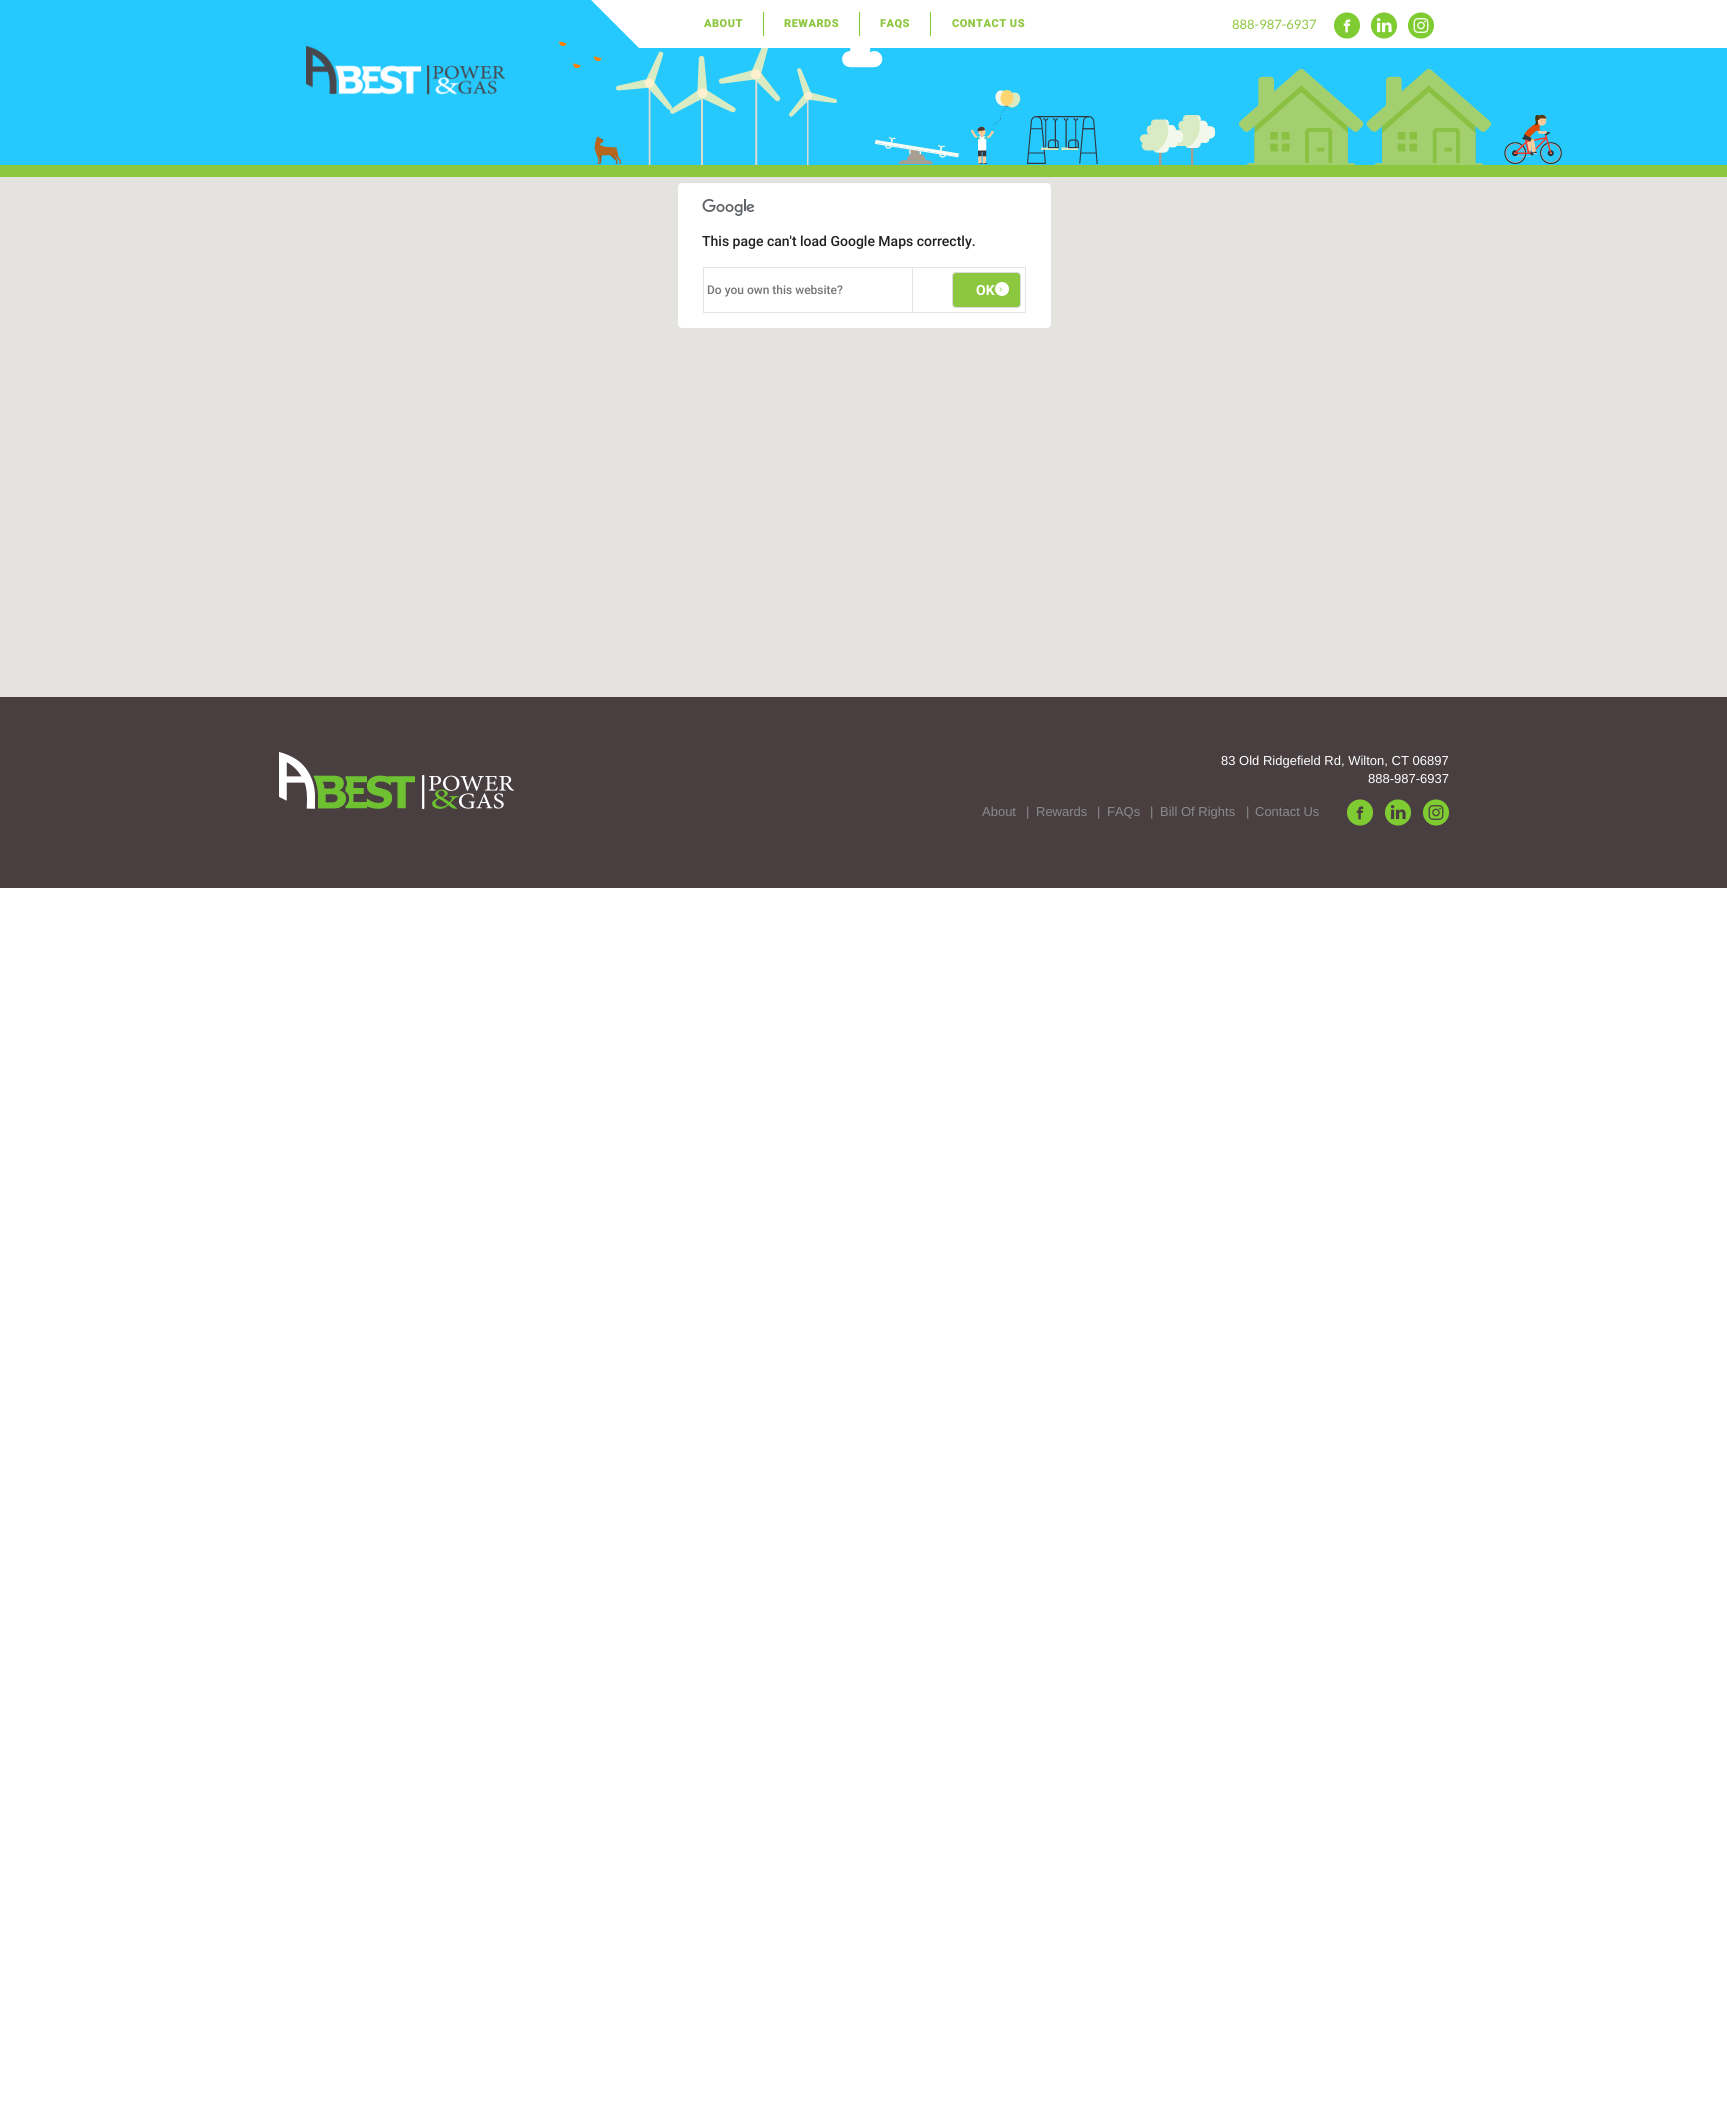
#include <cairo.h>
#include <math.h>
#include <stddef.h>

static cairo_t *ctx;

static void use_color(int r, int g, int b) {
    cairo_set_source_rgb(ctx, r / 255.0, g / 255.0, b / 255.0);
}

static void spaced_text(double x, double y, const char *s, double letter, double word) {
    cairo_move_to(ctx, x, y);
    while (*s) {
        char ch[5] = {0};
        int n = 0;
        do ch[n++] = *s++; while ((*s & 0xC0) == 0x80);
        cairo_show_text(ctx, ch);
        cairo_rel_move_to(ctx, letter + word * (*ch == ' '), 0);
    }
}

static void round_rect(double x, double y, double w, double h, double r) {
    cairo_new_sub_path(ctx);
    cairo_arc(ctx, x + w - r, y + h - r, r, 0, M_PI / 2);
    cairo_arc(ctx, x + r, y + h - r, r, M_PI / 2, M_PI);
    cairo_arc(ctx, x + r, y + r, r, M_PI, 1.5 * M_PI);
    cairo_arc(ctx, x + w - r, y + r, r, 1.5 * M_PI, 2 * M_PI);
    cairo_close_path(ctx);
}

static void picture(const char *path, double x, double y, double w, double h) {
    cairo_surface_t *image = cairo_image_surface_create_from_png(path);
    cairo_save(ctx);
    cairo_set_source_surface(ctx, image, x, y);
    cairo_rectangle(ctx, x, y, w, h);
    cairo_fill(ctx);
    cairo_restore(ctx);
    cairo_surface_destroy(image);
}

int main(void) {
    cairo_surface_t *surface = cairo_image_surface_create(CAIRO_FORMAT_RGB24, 1727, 2127);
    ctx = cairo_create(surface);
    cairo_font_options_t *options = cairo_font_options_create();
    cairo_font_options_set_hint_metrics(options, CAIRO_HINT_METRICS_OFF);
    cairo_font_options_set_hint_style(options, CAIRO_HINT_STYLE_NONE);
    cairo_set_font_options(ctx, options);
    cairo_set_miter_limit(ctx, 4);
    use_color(255, 255, 255);
    cairo_paint(ctx);
    use_color(38, 201, 254);
    cairo_rectangle(ctx, 0, 0, 1727, 165);
    cairo_fill(ctx);
    picture("img1.png", 0, 41, 1727, 136);
    use_color(255, 255, 255);
    cairo_rectangle(ctx, 639, 0, 1088, 48);
    cairo_fill(ctx);
    cairo_new_path(ctx);
    cairo_move_to(ctx, 639, -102);
    cairo_line_to(ctx, 639, 48);
    cairo_line_to(ctx, 489, -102);
    cairo_close_path(ctx);
    cairo_fill(ctx);
    cairo_select_font_face(ctx, "Roboto Black", CAIRO_FONT_SLANT_NORMAL, CAIRO_FONT_WEIGHT_NORMAL);
    cairo_set_font_size(ctx, 11);
    use_color(141, 198, 63);
    spaced_text(704, 27, "ABOUT", 0.5, 0);
    use_color(127, 203, 50);
    cairo_rectangle(ctx, 763, 12, 1, 24);
    cairo_fill(ctx);
    use_color(141, 198, 63);
    spaced_text(784, 27, "REWARDS", 0.5, 0);
    use_color(127, 203, 50);
    cairo_rectangle(ctx, 859, 12, 1, 24);
    cairo_fill(ctx);
    use_color(141, 198, 63);
    spaced_text(880, 27, "FAQS", 0.5, 0);
    use_color(127, 203, 50);
    cairo_rectangle(ctx, 930, 12, 1, 24);
    cairo_fill(ctx);
    use_color(141, 198, 63);
    spaced_text(952, 27, "CONTACT US", 0.5, 0);
    cairo_select_font_face(ctx, "Lato", CAIRO_FONT_SLANT_NORMAL, CAIRO_FONT_WEIGHT_NORMAL);
    cairo_set_font_size(ctx, 13);
    cairo_move_to(ctx, 1232, 29);
    cairo_show_text(ctx, "888-987-6937");
    picture("img2.png", 1334, 12, 26, 27);
    picture("img3.png", 1371, 12, 26, 27);
    picture("img4.png", 1408, 12, 26, 27);
    picture("img5.png", 306, 45, 199, 50);
    use_color(229, 227, 223);
    cairo_rectangle(ctx, 0, 177, 1727, 520);
    cairo_fill(ctx);
    use_color(255, 255, 255);
    round_rect(677, 182, 375, 147, 5);
    cairo_fill(ctx);
    round_rect(677.5, 182.5, 374, 146, 4.5);
    cairo_set_source_rgba(ctx, 0, 0, 0, 0.12);
    cairo_set_line_width(ctx, 1);
    cairo_stroke(ctx);
    picture("img6.png", 702, 199, 52, 17);
    cairo_select_font_face(ctx, "Roboto Medium", CAIRO_FONT_SLANT_NORMAL, CAIRO_FONT_WEIGHT_NORMAL);
    cairo_set_font_size(ctx, 14);
    use_color(33, 33, 33);
    cairo_move_to(ctx, 702, 246);
    cairo_show_text(ctx, "This page can't load Google Maps correctly.");
    use_color(229, 229, 229);
    cairo_rectangle(ctx, 912, 267, 114, 1);
    cairo_fill(ctx);
    cairo_rectangle(ctx, 1025, 267, 1, 46);
    cairo_fill(ctx);
    cairo_rectangle(ctx, 912, 312, 114, 1);
    cairo_fill(ctx);
    cairo_rectangle(ctx, 912, 267, 1, 46);
    cairo_fill(ctx);
    cairo_rectangle(ctx, 703, 267, 210, 1);
    cairo_fill(ctx);
    cairo_rectangle(ctx, 703, 312, 210, 1);
    cairo_fill(ctx);
    cairo_rectangle(ctx, 703, 267, 1, 46);
    cairo_fill(ctx);
    cairo_set_font_size(ctx, 12);
    use_color(117, 117, 117);
    cairo_move_to(ctx, 707, 294);
    cairo_show_text(ctx, "Do you own this website?");
    use_color(141, 198, 63);
    round_rect(952.5, 272.5, 68, 35, 3.5);
    cairo_fill_preserve(ctx);
    use_color(218, 220, 224);
    cairo_stroke(ctx);
    cairo_select_font_face(ctx, "Roboto", CAIRO_FONT_SLANT_NORMAL, CAIRO_FONT_WEIGHT_BOLD);
    cairo_set_font_size(ctx, 14);
    use_color(255, 255, 255);
    cairo_move_to(ctx, 976, 295);
    cairo_show_text(ctx, "OK");
    cairo_new_path(ctx);
    cairo_arc(ctx, 1002, 289, 7, 0, 2 * M_PI);
    cairo_fill(ctx);
    picture("img7.png", 999, 287, 4, 5);
    use_color(73, 63, 65);
    cairo_rectangle(ctx, 0, 697, 1727, 191);
    cairo_fill(ctx);
    picture("img8.png", 279, 752, 235, 58);
    cairo_select_font_face(ctx, "Liberation Sans", CAIRO_FONT_SLANT_NORMAL, CAIRO_FONT_WEIGHT_NORMAL);
    cairo_set_font_size(ctx, 13);
    use_color(255, 255, 255);
    cairo_move_to(ctx, 1221, 765);
    cairo_show_text(ctx, "83 Old Ridgefield Rd, Wilton, CT 06897");
    cairo_move_to(ctx, 1368, 783);
    cairo_show_text(ctx, "888-987-6937");
    use_color(138, 138, 138);
    cairo_move_to(ctx, 982, 816);
    cairo_show_text(ctx, "About");
    cairo_move_to(ctx, 1026, 816);
    cairo_show_text(ctx, "|");
    cairo_move_to(ctx, 1036, 816);
    cairo_show_text(ctx, "Rewards");
    cairo_move_to(ctx, 1097, 816);
    cairo_show_text(ctx, "|");
    cairo_move_to(ctx, 1107, 816);
    cairo_show_text(ctx, "FAQs");
    cairo_move_to(ctx, 1150, 816);
    cairo_show_text(ctx, "|");
    cairo_move_to(ctx, 1160, 816);
    cairo_show_text(ctx, "Bill Of Rights");
    cairo_move_to(ctx, 1246, 816);
    cairo_show_text(ctx, "|");
    cairo_move_to(ctx, 1255, 816);
    cairo_show_text(ctx, "Contact Us");
    picture("img9.png", 1347, 799, 26, 27);
    picture("img10.png", 1385, 799, 26, 27);
    picture("img11.png", 1423, 799, 26, 27);
    cairo_surface_write_to_png(surface, "result.png");
    cairo_font_options_destroy(options);
    cairo_destroy(ctx);
    cairo_surface_destroy(surface);
    return 0;
}
